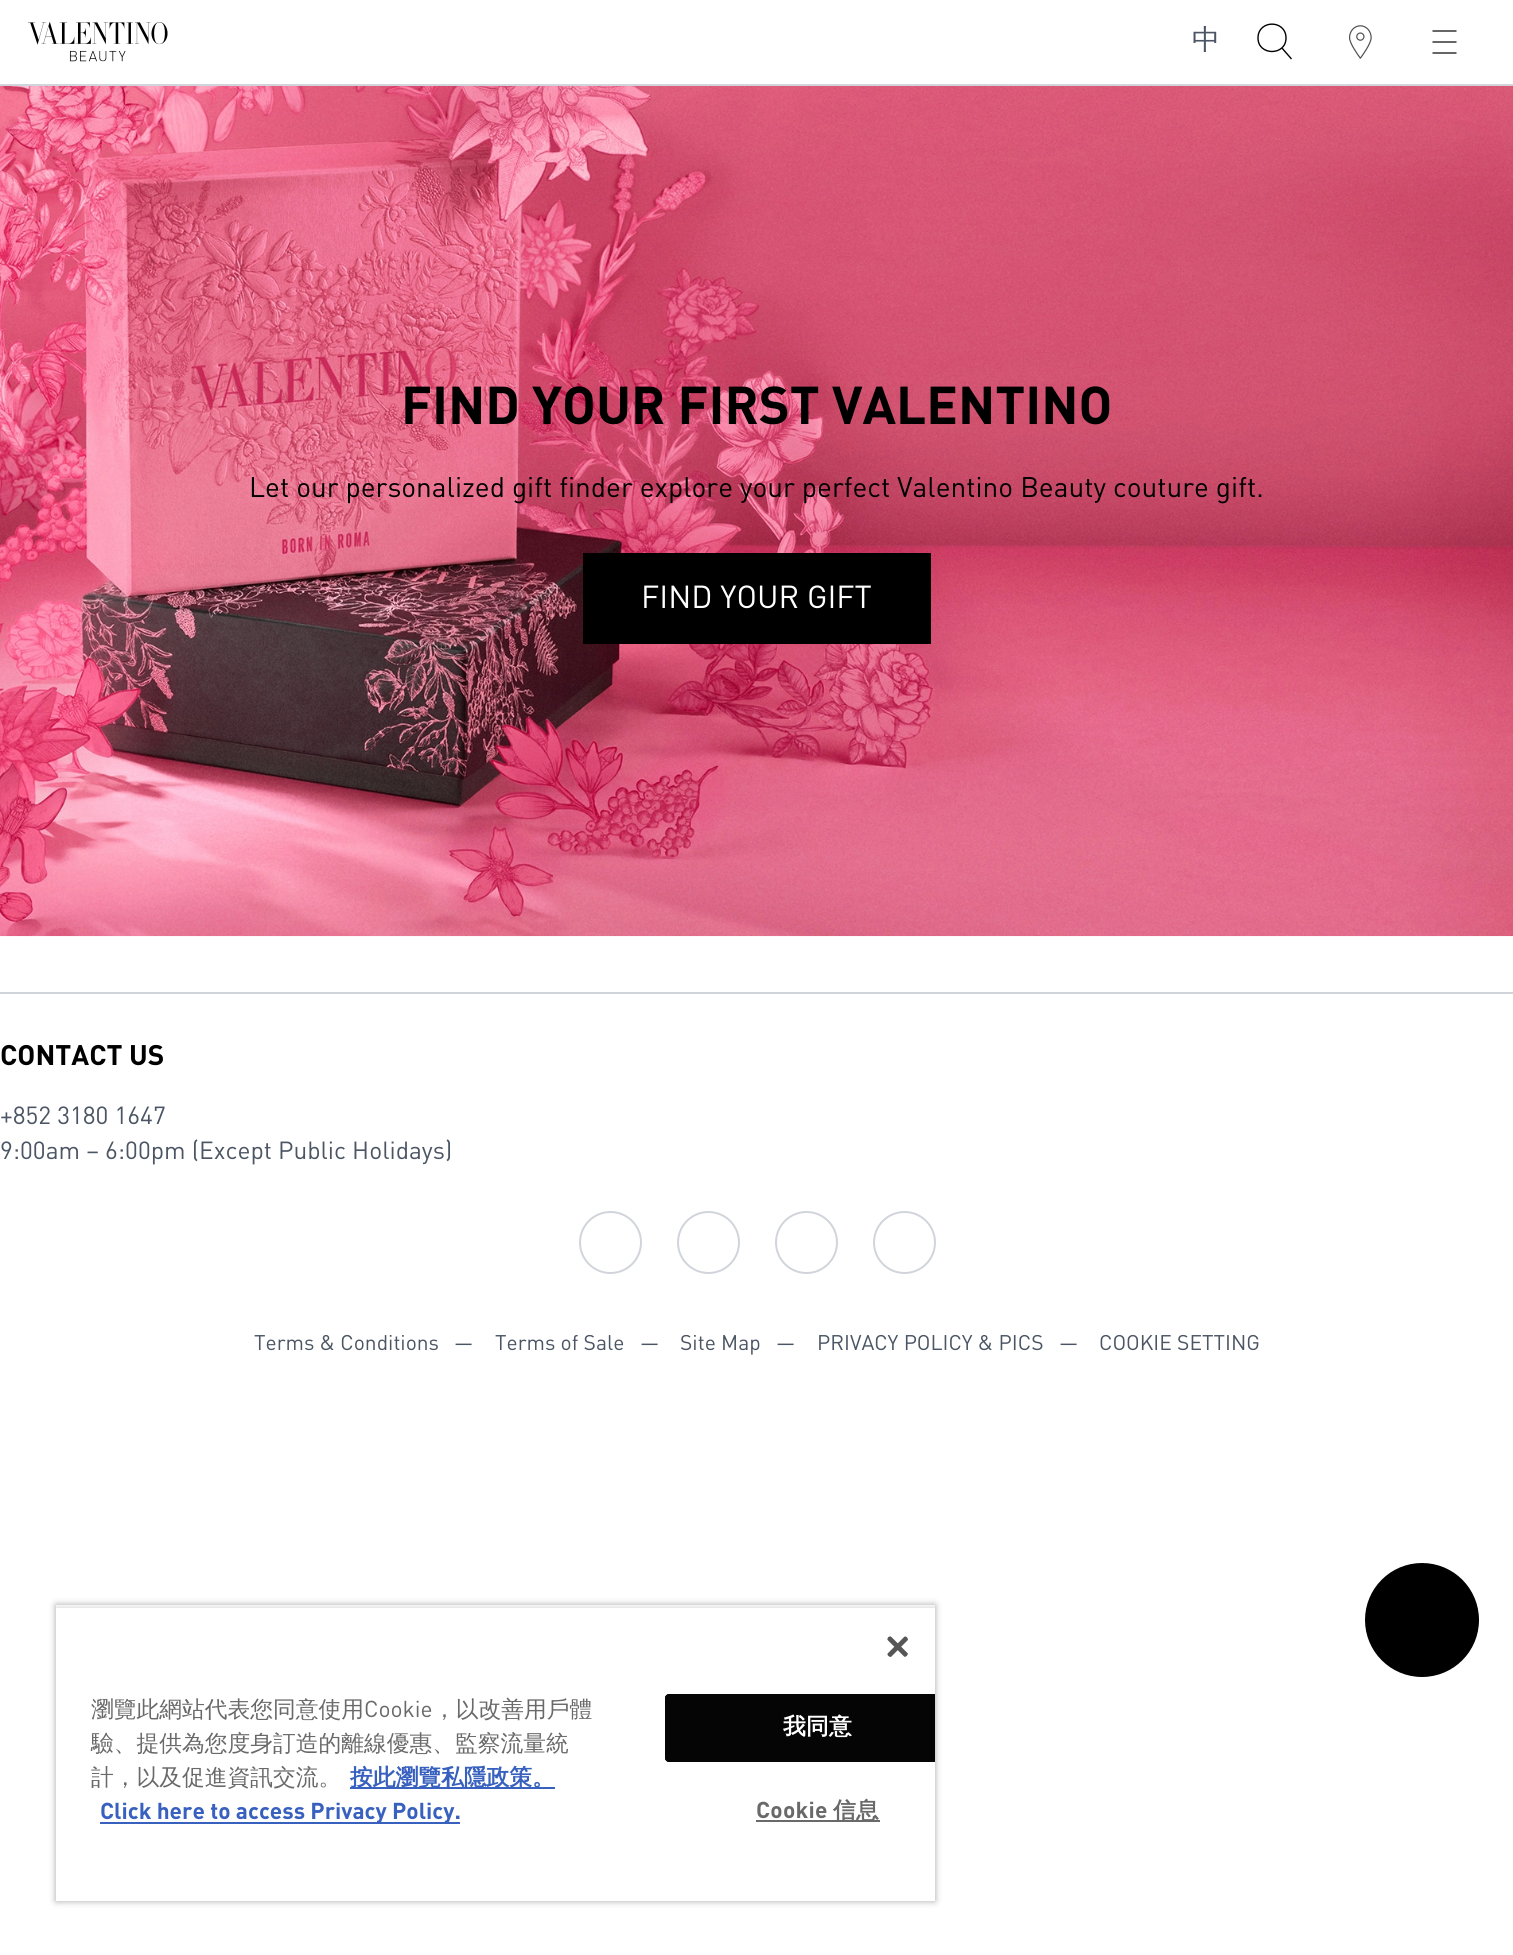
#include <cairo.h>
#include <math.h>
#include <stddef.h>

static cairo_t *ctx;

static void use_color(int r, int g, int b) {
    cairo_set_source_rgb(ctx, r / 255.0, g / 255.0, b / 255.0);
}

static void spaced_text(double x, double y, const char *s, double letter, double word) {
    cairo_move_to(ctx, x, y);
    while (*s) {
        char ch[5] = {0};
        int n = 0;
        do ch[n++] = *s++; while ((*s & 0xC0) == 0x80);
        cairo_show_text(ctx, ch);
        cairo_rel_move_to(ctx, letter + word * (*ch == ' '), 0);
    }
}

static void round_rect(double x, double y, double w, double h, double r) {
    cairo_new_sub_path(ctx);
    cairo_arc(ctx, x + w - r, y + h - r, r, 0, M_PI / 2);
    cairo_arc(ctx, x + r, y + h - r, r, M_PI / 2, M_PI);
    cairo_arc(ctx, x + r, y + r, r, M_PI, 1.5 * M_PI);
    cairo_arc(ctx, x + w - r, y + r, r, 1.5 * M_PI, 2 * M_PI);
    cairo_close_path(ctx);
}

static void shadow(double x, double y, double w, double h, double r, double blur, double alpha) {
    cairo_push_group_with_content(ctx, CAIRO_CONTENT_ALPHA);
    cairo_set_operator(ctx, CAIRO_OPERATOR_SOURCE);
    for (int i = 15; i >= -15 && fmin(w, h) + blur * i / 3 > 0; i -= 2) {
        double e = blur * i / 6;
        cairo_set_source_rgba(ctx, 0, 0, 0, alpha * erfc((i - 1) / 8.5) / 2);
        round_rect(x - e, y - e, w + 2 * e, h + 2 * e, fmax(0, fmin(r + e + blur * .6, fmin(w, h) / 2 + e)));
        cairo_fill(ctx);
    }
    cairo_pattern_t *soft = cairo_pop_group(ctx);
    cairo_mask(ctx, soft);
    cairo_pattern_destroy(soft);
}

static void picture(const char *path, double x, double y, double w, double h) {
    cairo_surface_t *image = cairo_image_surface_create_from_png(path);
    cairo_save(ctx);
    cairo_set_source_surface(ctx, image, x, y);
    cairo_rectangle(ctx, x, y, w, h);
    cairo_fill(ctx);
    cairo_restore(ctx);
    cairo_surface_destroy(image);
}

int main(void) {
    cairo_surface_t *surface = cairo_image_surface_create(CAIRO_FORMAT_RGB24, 1513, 1955);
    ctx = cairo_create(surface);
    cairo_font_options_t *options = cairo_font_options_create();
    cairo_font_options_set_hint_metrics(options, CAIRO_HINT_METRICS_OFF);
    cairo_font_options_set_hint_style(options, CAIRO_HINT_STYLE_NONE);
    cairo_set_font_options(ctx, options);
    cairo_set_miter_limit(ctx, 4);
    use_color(255, 255, 255);
    cairo_paint(ctx);
    picture("img1.png", 28, 22, 140, 40);
    cairo_select_font_face(ctx, "WenQuanYi Zen Hei Medium", CAIRO_FONT_SLANT_NORMAL, CAIRO_FONT_WEIGHT_NORMAL);
    cairo_set_font_size(ctx, 28);
    use_color(75, 85, 99);
    cairo_move_to(ctx, 1192, 49);
    cairo_show_text(ctx, "中");
    cairo_new_path(ctx);
    cairo_move_to(ctx, 1286, 38);
    cairo_curve_to(ctx, 1286, 56, 1258, 56, 1258, 38);
    cairo_curve_to(ctx, 1258, 19.5, 1286, 19.5, 1286, 38);
    cairo_close_path(ctx);
    cairo_move_to(ctx, 1281.5, 47.5);
    cairo_line_to(ctx, 1291.5, 59);
    use_color(0, 0, 0);
    cairo_set_line_width(ctx, 1.4);
    cairo_set_line_join(ctx, CAIRO_LINE_JOIN_ROUND);
    cairo_stroke(ctx);
    picture("img2.png", 1348, 25, 24, 34);
    cairo_new_path(ctx);
    cairo_move_to(ctx, 1432.5, 31);
    cairo_line_to(ctx, 1456.5, 31);
    cairo_move_to(ctx, 1432.5, 42);
    cairo_line_to(ctx, 1456.5, 42);
    cairo_move_to(ctx, 1432.5, 53);
    cairo_line_to(ctx, 1456.5, 53);
    cairo_set_line_width(ctx, 1.2);
    cairo_stroke(ctx);
    use_color(209, 213, 219);
    cairo_rectangle(ctx, 0, 84, 1513, 2);
    cairo_fill(ctx);
    picture("img3.png", 0, 86, 1513, 851);
    cairo_select_font_face(ctx, "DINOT", CAIRO_FONT_SLANT_NORMAL, CAIRO_FONT_WEIGHT_BOLD);
    cairo_set_font_size(ctx, 52.5);
    use_color(0, 0, 0);
    cairo_move_to(ctx, 401, 424);
    cairo_show_text(ctx, "FIND YOUR FIRST VALENTINO");
    cairo_select_font_face(ctx, "DINOT", CAIRO_FONT_SLANT_NORMAL, CAIRO_FONT_WEIGHT_NORMAL);
    cairo_set_font_size(ctx, 28);
    cairo_move_to(ctx, 249, 497);
    cairo_show_text(ctx, "Let our personalized gift finder explore your perfect Valentino Beauty couture gift.");
    cairo_rectangle(ctx, 583, 553, 348, 91);
    cairo_fill(ctx);
    cairo_set_font_size(ctx, 31.5);
    use_color(255, 255, 255);
    cairo_move_to(ctx, 641, 608);
    cairo_show_text(ctx, "FIND YOUR GIFT");
    use_color(209, 213, 219);
    cairo_rectangle(ctx, 0, 992, 1513, 2);
    cairo_fill(ctx);
    cairo_select_font_face(ctx, "DINOT", CAIRO_FONT_SLANT_NORMAL, CAIRO_FONT_WEIGHT_BOLD);
    cairo_set_font_size(ctx, 28);
    use_color(0, 0, 0);
    cairo_move_to(ctx, 0, 1065);
    cairo_show_text(ctx, "CONTACT US");
    cairo_select_font_face(ctx, "DINOT", CAIRO_FONT_SLANT_NORMAL, CAIRO_FONT_WEIGHT_NORMAL);
    cairo_set_font_size(ctx, 24.5);
    use_color(75, 85, 99);
    cairo_move_to(ctx, 0, 1124);
    cairo_show_text(ctx, "+852 3180 1647");
    cairo_move_to(ctx, 0, 1159);
    cairo_show_text(ctx, "9:00am – 6:00pm (Except Public Holidays)");
    cairo_new_path(ctx);
    cairo_arc(ctx, 610.5, 1242.5, 30.5, 0, 2 * M_PI);
    use_color(209, 213, 219);
    cairo_set_line_width(ctx, 2);
    cairo_set_line_join(ctx, CAIRO_LINE_JOIN_MITER);
    cairo_stroke(ctx);
    cairo_arc(ctx, 708.5, 1242.5, 30.5, 0, 2 * M_PI);
    cairo_stroke(ctx);
    cairo_arc(ctx, 806.5, 1242.5, 30.5, 0, 2 * M_PI);
    cairo_stroke(ctx);
    cairo_arc(ctx, 904.5, 1242.5, 30.5, 0, 2 * M_PI);
    cairo_stroke(ctx);
    cairo_set_font_size(ctx, 21);
    use_color(75, 85, 99);
    cairo_move_to(ctx, 254, 1350);
    cairo_show_text(ctx, "Terms & Conditions");
    cairo_move_to(ctx, 454, 1350);
    cairo_show_text(ctx, "—");
    cairo_move_to(ctx, 495, 1350);
    cairo_show_text(ctx, "Terms of Sale");
    cairo_move_to(ctx, 640, 1350);
    cairo_show_text(ctx, "—");
    cairo_move_to(ctx, 680, 1350);
    cairo_show_text(ctx, "Site Map");
    cairo_move_to(ctx, 776, 1350);
    cairo_show_text(ctx, "—");
    cairo_move_to(ctx, 817, 1350);
    cairo_show_text(ctx, "PRIVACY POLICY & PICS");
    cairo_move_to(ctx, 1059, 1350);
    cairo_show_text(ctx, "—");
    cairo_move_to(ctx, 1099, 1350);
    cairo_show_text(ctx, "COOKIE SETTING");
    use_color(0, 0, 0);
    cairo_new_path(ctx);
    cairo_arc(ctx, 1422, 1620, 57, 0, 2 * M_PI);
    cairo_fill(ctx);
    cairo_save(ctx);
    cairo_set_fill_rule(ctx, CAIRO_FILL_RULE_EVEN_ODD);
    cairo_new_path(ctx);
    cairo_move_to(ctx, 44, 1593);
    cairo_line_to(ctx, 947, 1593);
    cairo_line_to(ctx, 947, 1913);
    cairo_line_to(ctx, 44, 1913);
    cairo_close_path(ctx);
    cairo_move_to(ctx, 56, 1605);
    cairo_line_to(ctx, 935, 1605);
    cairo_line_to(ctx, 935, 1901);
    cairo_line_to(ctx, 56, 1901);
    cairo_close_path(ctx);
    cairo_clip(ctx);
    use_color(0, 0, 0);
    shadow(56, 1605, 879, 296, 0, 3.5, 0.35);
    cairo_restore(ctx);
    cairo_save(ctx);
    cairo_rectangle(ctx, 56, 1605, 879, 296);
    cairo_clip(ctx);
    use_color(0, 0, 0);
    shadow(56, 1608, 879, 293, 0, 3.5, 0.2);
    cairo_restore(ctx);
    use_color(255, 255, 255);
    cairo_rectangle(ctx, 56, 1608, 879, 293);
    cairo_fill(ctx);
    picture("img4.png", 887, 1636, 21, 21);
    cairo_select_font_face(ctx, "WenQuanYi Zen Hei Medium", CAIRO_FONT_SLANT_NORMAL, CAIRO_FONT_WEIGHT_NORMAL);
    cairo_set_font_size(ctx, 22.75);
    use_color(105, 105, 105);
    cairo_move_to(ctx, 91, 1717);
    cairo_show_text(ctx, "瀏覽此網站代表您同意使用");
    cairo_select_font_face(ctx, "DINOT", CAIRO_FONT_SLANT_NORMAL, CAIRO_FONT_WEIGHT_NORMAL);
    cairo_move_to(ctx, 364, 1717);
    cairo_show_text(ctx, "Cookie");
    cairo_select_font_face(ctx, "WenQuanYi Zen Hei Medium", CAIRO_FONT_SLANT_NORMAL, CAIRO_FONT_WEIGHT_NORMAL);
    cairo_move_to(ctx, 433, 1717);
    cairo_show_text(ctx, "，以改善用戶體");
    cairo_move_to(ctx, 91, 1751);
    cairo_show_text(ctx, "驗、提供為您度身訂造的離線優惠、監察流量統");
    cairo_move_to(ctx, 91, 1785);
    cairo_show_text(ctx, "計，以及促進資訊交流。");
    use_color(56, 96, 190);
    cairo_rectangle(ctx, 350, 1787, 205, 2);
    cairo_fill(ctx);
    cairo_select_font_face(ctx, "WenQuanYi Zen Hei", CAIRO_FONT_SLANT_NORMAL, CAIRO_FONT_WEIGHT_BOLD);
    cairo_move_to(ctx, 350, 1785);
    cairo_show_text(ctx, "按此瀏覽私隱政策。");
    cairo_rectangle(ctx, 100, 1822, 360, 2);
    cairo_fill(ctx);
    cairo_select_font_face(ctx, "DINOT", CAIRO_FONT_SLANT_NORMAL, CAIRO_FONT_WEIGHT_BOLD);
    cairo_move_to(ctx, 100, 1819);
    cairo_show_text(ctx, "Click here to access Privacy Policy.");
    use_color(5, 5, 5);
    cairo_new_path(ctx);
    cairo_move_to(ctx, 669, 1694);
    cairo_line_to(ctx, 935, 1694);
    cairo_line_to(ctx, 935, 1762);
    cairo_line_to(ctx, 669, 1762);
    cairo_curve_to(ctx, 667, 1762, 665, 1760, 665, 1758);
    cairo_line_to(ctx, 665, 1698);
    cairo_curve_to(ctx, 665, 1696, 667, 1694, 669, 1694);
    cairo_close_path(ctx);
    cairo_fill(ctx);
    cairo_save(ctx);
    cairo_rectangle(ctx, 56, 1605, 879, 296);
    cairo_clip(ctx);
    round_rect(666, 1695, 304, 66, 3);
    cairo_stroke(ctx);
    cairo_restore(ctx);
    cairo_select_font_face(ctx, "WenQuanYi Zen Hei", CAIRO_FONT_SLANT_NORMAL, CAIRO_FONT_WEIGHT_BOLD);
    use_color(255, 255, 255);
    spaced_text(783, 1734, "我同意", 0.25, 0);
    cairo_select_font_face(ctx, "DINOT", CAIRO_FONT_SLANT_NORMAL, CAIRO_FONT_WEIGHT_BOLD);
    use_color(105, 105, 105);
    spaced_text(756, 1818, "Cookie", 0.25, 0);
    cairo_rectangle(ctx, 756, 1820, 124, 2);
    cairo_fill(ctx);
    cairo_select_font_face(ctx, "WenQuanYi Zen Hei", CAIRO_FONT_SLANT_NORMAL, CAIRO_FONT_WEIGHT_BOLD);
    spaced_text(833, 1818, "信息", 0.25, 0);
    cairo_surface_write_to_png(surface, "result.png");
    cairo_font_options_destroy(options);
    cairo_destroy(ctx);
    cairo_surface_destroy(surface);
    return 0;
}
